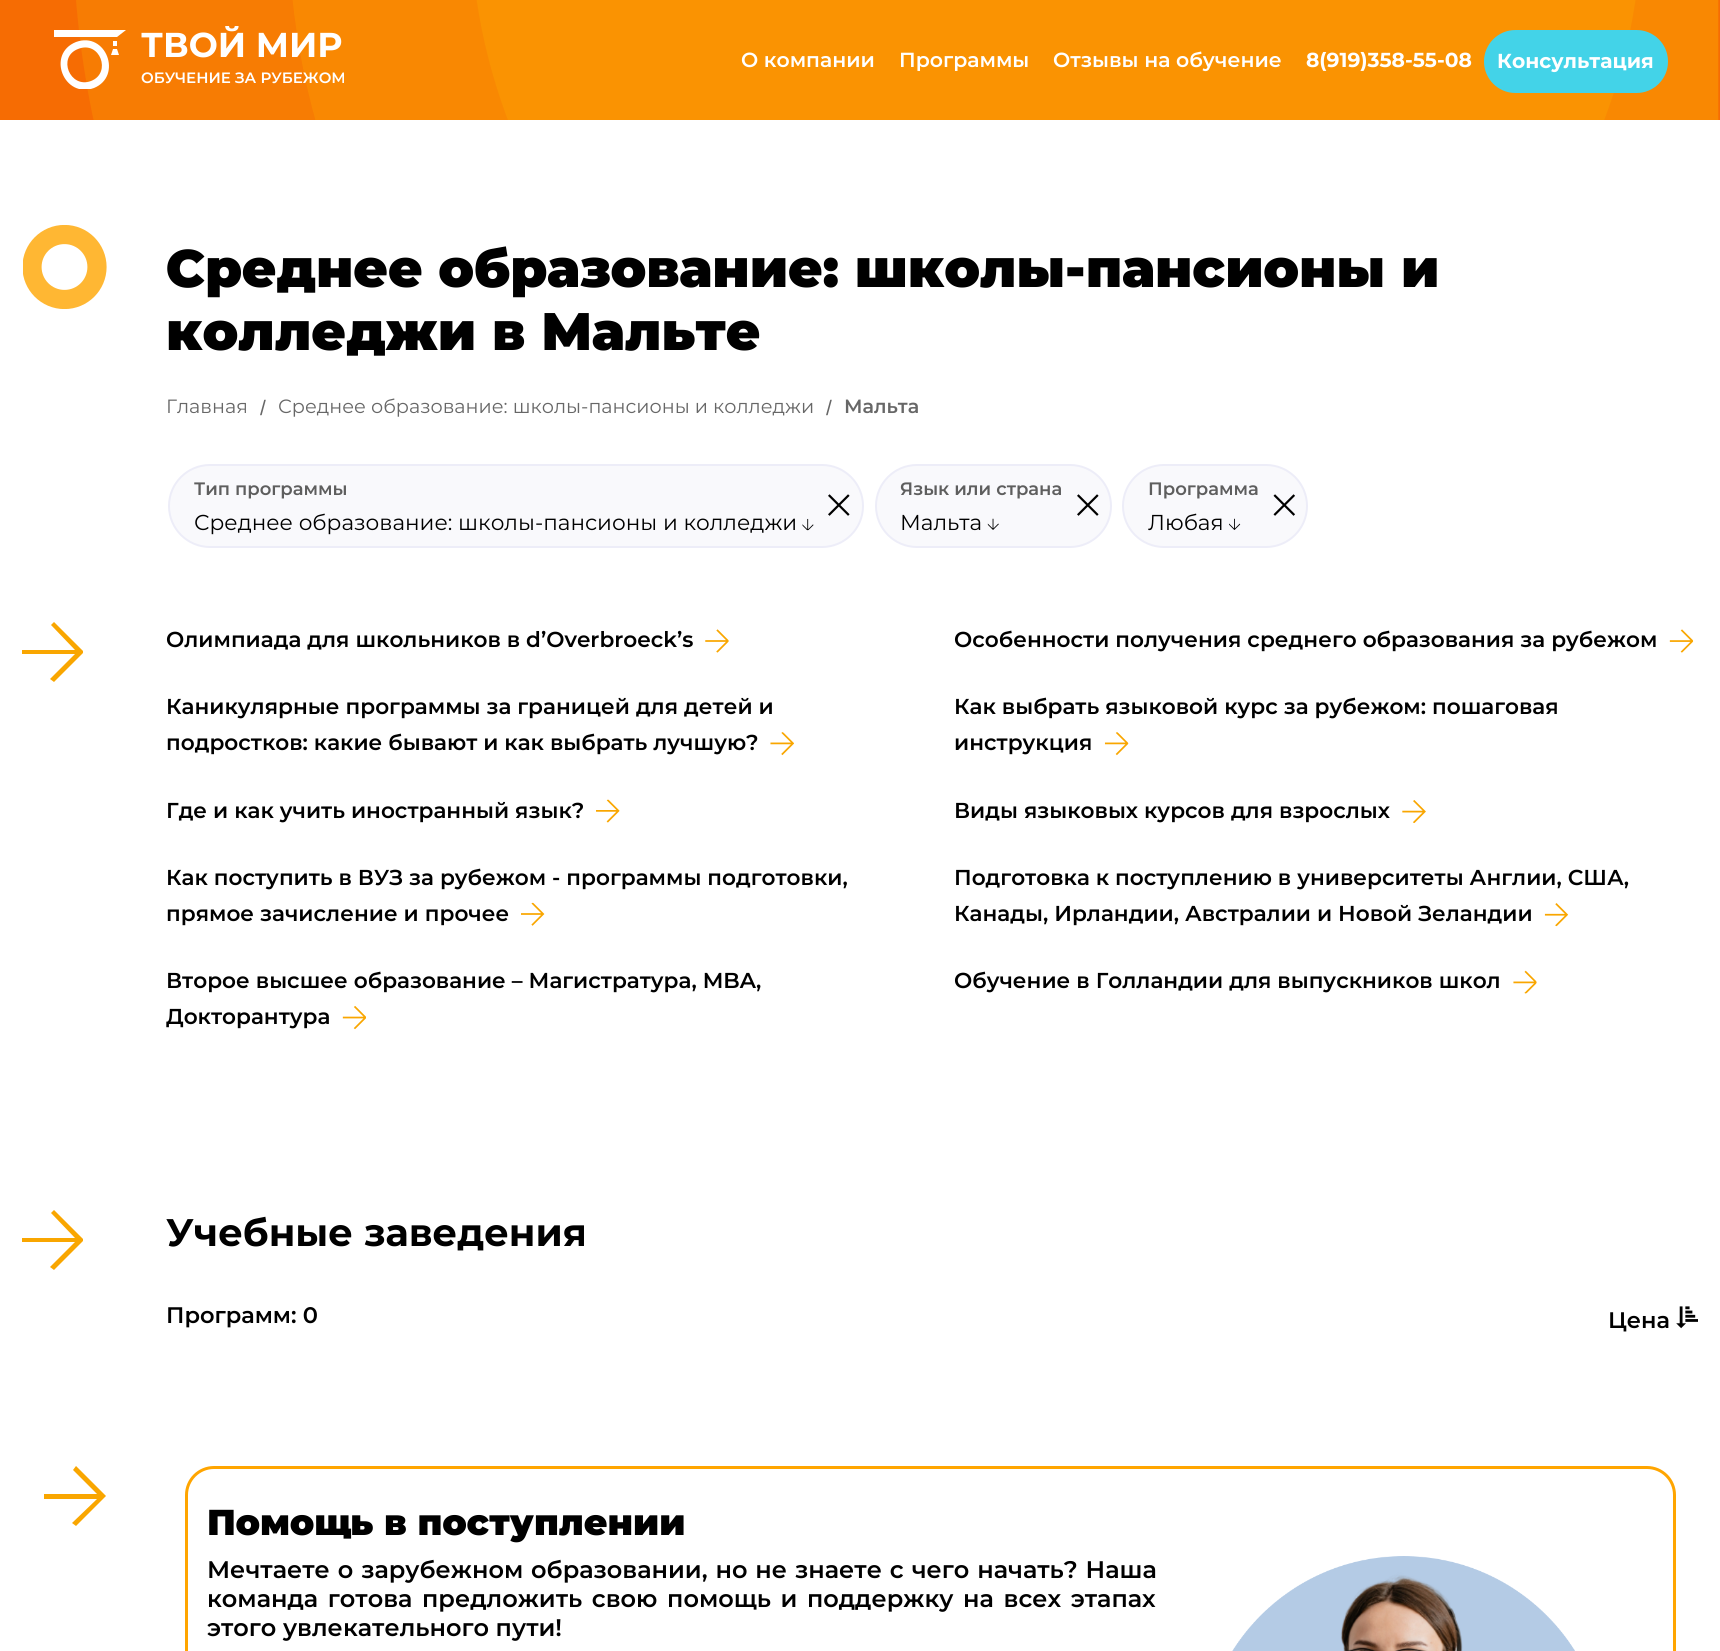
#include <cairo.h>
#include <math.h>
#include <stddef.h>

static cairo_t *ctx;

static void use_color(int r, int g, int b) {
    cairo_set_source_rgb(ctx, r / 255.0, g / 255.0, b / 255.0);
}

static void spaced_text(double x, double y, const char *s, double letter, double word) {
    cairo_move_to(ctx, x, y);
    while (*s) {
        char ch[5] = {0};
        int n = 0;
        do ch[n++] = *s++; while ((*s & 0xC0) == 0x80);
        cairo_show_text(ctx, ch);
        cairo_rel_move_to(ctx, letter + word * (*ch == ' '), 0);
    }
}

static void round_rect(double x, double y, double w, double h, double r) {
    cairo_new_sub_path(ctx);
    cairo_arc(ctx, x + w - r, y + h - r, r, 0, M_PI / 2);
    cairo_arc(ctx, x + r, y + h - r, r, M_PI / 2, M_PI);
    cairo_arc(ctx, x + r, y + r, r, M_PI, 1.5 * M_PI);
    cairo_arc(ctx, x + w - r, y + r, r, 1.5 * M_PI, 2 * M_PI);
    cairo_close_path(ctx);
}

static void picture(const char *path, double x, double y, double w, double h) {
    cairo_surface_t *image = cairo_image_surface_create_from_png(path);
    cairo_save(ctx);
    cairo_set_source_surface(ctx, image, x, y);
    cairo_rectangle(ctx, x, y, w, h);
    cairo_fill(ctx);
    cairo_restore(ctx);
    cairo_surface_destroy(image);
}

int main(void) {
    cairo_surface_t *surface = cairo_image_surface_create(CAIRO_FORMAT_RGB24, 1720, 1651);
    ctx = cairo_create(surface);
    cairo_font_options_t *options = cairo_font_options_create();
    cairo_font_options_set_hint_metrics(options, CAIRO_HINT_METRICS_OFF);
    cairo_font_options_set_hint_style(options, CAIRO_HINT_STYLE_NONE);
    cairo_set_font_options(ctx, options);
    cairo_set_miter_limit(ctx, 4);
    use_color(255, 255, 255);
    cairo_paint(ctx);
    use_color(246, 108, 3);
    cairo_rectangle(ctx, 0, 0, 1720, 120);
    cairo_fill(ctx);
    picture("img1.png", 76, 0, 1643, 120);
    cairo_save(ctx);
    cairo_rectangle(ctx, 54, 30, 72, 59);
    cairo_clip(ctx);
    use_color(255, 255, 255);
    cairo_set_fill_rule(ctx, CAIRO_FILL_RULE_EVEN_ODD);
    cairo_new_path(ctx);
    cairo_move_to(ctx, 76, 42);
    cairo_curve_to(ctx, 46, 54, 64, 99, 94, 88);
    cairo_curve_to(ctx, 123, 76, 106, 31, 76, 42);
    cairo_close_path(ctx);
    cairo_move_to(ctx, 113, 49);
    cairo_line_to(ctx, 117, 49);
    cairo_line_to(ctx, 119, 55);
    cairo_line_to(ctx, 111, 55);
    cairo_close_path(ctx);
    cairo_move_to(ctx, 113, 41);
    cairo_line_to(ctx, 117, 41);
    cairo_line_to(ctx, 117, 46);
    cairo_line_to(ctx, 113, 46);
    cairo_close_path(ctx);
    cairo_move_to(ctx, 54, 30);
    cairo_line_to(ctx, 126, 30);
    cairo_line_to(ctx, 117, 37);
    cairo_line_to(ctx, 54, 37);
    cairo_close_path(ctx);
    cairo_move_to(ctx, 78, 49);
    cairo_curve_to(ctx, 57, 57, 70, 89, 91, 81);
    cairo_curve_to(ctx, 112, 73, 100, 40, 78, 49);
    cairo_close_path(ctx);
    cairo_fill(ctx);
    cairo_restore(ctx);
    cairo_select_font_face(ctx, "Montserrat", CAIRO_FONT_SLANT_NORMAL, CAIRO_FONT_WEIGHT_BOLD);
    cairo_set_font_size(ctx, 34.5);
    use_color(255, 255, 255);
    cairo_move_to(ctx, 141, 57);
    cairo_show_text(ctx, "ТВОЙ МИР");
    cairo_select_font_face(ctx, "Montserrat SemiBold", CAIRO_FONT_SLANT_NORMAL, CAIRO_FONT_WEIGHT_NORMAL);
    cairo_set_font_size(ctx, 15);
    cairo_move_to(ctx, 141, 83);
    cairo_show_text(ctx, "ОБУЧЕНИЕ ЗА РУБЕЖОМ");
    cairo_set_font_size(ctx, 20.4);
    cairo_move_to(ctx, 741, 67);
    cairo_show_text(ctx, "О компании");
    cairo_move_to(ctx, 899, 67);
    cairo_show_text(ctx, "Программы");
    cairo_move_to(ctx, 1053, 67);
    cairo_show_text(ctx, "Отзывы на обучение");
    cairo_select_font_face(ctx, "Montserrat", CAIRO_FONT_SLANT_NORMAL, CAIRO_FONT_WEIGHT_BOLD);
    cairo_set_font_size(ctx, 20.25);
    cairo_move_to(ctx, 1306, 67);
    cairo_show_text(ctx, "8(919)358-55-08");
    use_color(67, 211, 232);
    round_rect(1485, 31, 182, 61, 30.5);
    cairo_fill_preserve(ctx);
    cairo_stroke(ctx);
    use_color(255, 255, 255);
    cairo_move_to(ctx, 1497, 68);
    cairo_show_text(ctx, "Консультация");
    cairo_save(ctx);
    cairo_rectangle(ctx, 23, 225, 84, 84);
    cairo_clip(ctx);
    cairo_arc(ctx, 64.5, 267, 32.5, 0, 2 * M_PI);
    use_color(255, 183, 51);
    cairo_set_line_width(ctx, 19.2);
    cairo_stroke(ctx);
    cairo_restore(ctx);
    cairo_select_font_face(ctx, "Montserrat Black", CAIRO_FONT_SLANT_NORMAL, CAIRO_FONT_WEIGHT_NORMAL);
    cairo_set_font_size(ctx, 52.8);
    use_color(0, 0, 0);
    cairo_move_to(ctx, 166, 287);
    cairo_show_text(ctx, "Среднее образование: школы-пансионы и");
    cairo_move_to(ctx, 166, 350);
    cairo_show_text(ctx, "колледжи в Мальте");
    cairo_select_font_face(ctx, "Montserrat", CAIRO_FONT_SLANT_NORMAL, CAIRO_FONT_WEIGHT_NORMAL);
    cairo_set_font_size(ctx, 19.2);
    use_color(103, 103, 103);
    cairo_move_to(ctx, 166, 413);
    cairo_show_text(ctx, "Главная");
    cairo_select_font_face(ctx, "Liberation Sans", CAIRO_FONT_SLANT_NORMAL, CAIRO_FONT_WEIGHT_NORMAL);
    cairo_set_font_size(ctx, 21);
    cairo_move_to(ctx, 260, 415);
    cairo_show_text(ctx, "/");
    cairo_select_font_face(ctx, "Montserrat", CAIRO_FONT_SLANT_NORMAL, CAIRO_FONT_WEIGHT_NORMAL);
    cairo_set_font_size(ctx, 19.2);
    cairo_move_to(ctx, 278, 413);
    cairo_show_text(ctx, "Среднее образование: школы-пансионы и колледжи");
    cairo_select_font_face(ctx, "Liberation Sans", CAIRO_FONT_SLANT_NORMAL, CAIRO_FONT_WEIGHT_NORMAL);
    cairo_set_font_size(ctx, 21);
    cairo_move_to(ctx, 826, 415);
    cairo_show_text(ctx, "/");
    cairo_select_font_face(ctx, "Montserrat SemiBold", CAIRO_FONT_SLANT_NORMAL, CAIRO_FONT_WEIGHT_NORMAL);
    cairo_set_font_size(ctx, 19.2);
    cairo_move_to(ctx, 844, 413);
    cairo_show_text(ctx, "Мальта");
    use_color(249, 249, 252);
    round_rect(169, 465, 694, 82, 41);
    cairo_fill_preserve(ctx);
    use_color(237, 237, 248);
    cairo_stroke(ctx);
    cairo_set_font_size(ctx, 18);
    use_color(94, 94, 94);
    cairo_move_to(ctx, 194, 495);
    cairo_show_text(ctx, "Тип программы");
    cairo_select_font_face(ctx, "Montserrat", CAIRO_FONT_SLANT_NORMAL, CAIRO_FONT_WEIGHT_NORMAL);
    cairo_set_font_size(ctx, 21.6);
    use_color(0, 0, 0);
    cairo_move_to(ctx, 194, 530);
    cairo_show_text(ctx, "Среднее образование: школы-пансионы и колледжи");
    picture("img2.png", 802, 518, 12, 13);
    picture("img3.png", 828, 494, 22, 22);
    use_color(249, 249, 252);
    round_rect(876, 465, 235, 82, 41);
    cairo_fill_preserve(ctx);
    use_color(237, 237, 248);
    cairo_stroke(ctx);
    cairo_select_font_face(ctx, "Montserrat SemiBold", CAIRO_FONT_SLANT_NORMAL, CAIRO_FONT_WEIGHT_NORMAL);
    cairo_set_font_size(ctx, 18);
    use_color(94, 94, 94);
    cairo_move_to(ctx, 900, 495);
    cairo_show_text(ctx, "Язык или страна");
    cairo_select_font_face(ctx, "Montserrat", CAIRO_FONT_SLANT_NORMAL, CAIRO_FONT_WEIGHT_NORMAL);
    cairo_set_font_size(ctx, 21.6);
    use_color(0, 0, 0);
    cairo_move_to(ctx, 900, 530);
    cairo_show_text(ctx, "Мальта");
    picture("img4.png", 987, 518, 12, 12);
    picture("img3.png", 1077, 494, 22, 22);
    use_color(249, 249, 252);
    round_rect(1123, 465, 184, 82, 41);
    cairo_fill_preserve(ctx);
    use_color(237, 237, 248);
    cairo_stroke(ctx);
    cairo_select_font_face(ctx, "Montserrat SemiBold", CAIRO_FONT_SLANT_NORMAL, CAIRO_FONT_WEIGHT_NORMAL);
    cairo_set_font_size(ctx, 18);
    use_color(94, 94, 94);
    cairo_move_to(ctx, 1148, 495);
    cairo_show_text(ctx, "Программа");
    cairo_select_font_face(ctx, "Montserrat", CAIRO_FONT_SLANT_NORMAL, CAIRO_FONT_WEIGHT_NORMAL);
    cairo_set_font_size(ctx, 21.6);
    use_color(0, 0, 0);
    cairo_move_to(ctx, 1148, 530);
    cairo_show_text(ctx, "Любая");
    picture("img5.png", 1229, 518, 12, 12);
    picture("img6.png", 1273, 494, 22, 22);
    use_color(249, 166, 0);
    cairo_new_path(ctx);
    cairo_move_to(ctx, 50, 679);
    cairo_line_to(ctx, 75, 654);
    cairo_line_to(ctx, 22, 654);
    cairo_line_to(ctx, 22, 650);
    cairo_line_to(ctx, 75, 650);
    cairo_line_to(ctx, 51, 625);
    cairo_line_to(ctx, 54, 622);
    cairo_line_to(ctx, 83, 651);
    cairo_line_to(ctx, 83, 653);
    cairo_line_to(ctx, 54, 682);
    cairo_close_path(ctx);
    cairo_fill(ctx);
    cairo_select_font_face(ctx, "Montserrat SemiBold", CAIRO_FONT_SLANT_NORMAL, CAIRO_FONT_WEIGHT_NORMAL);
    use_color(0, 0, 0);
    cairo_move_to(ctx, 166, 647);
    cairo_show_text(ctx, "Олимпиада для школьников в d’Overbroeck’s");
    picture("img7.png", 705, 629, 24, 24);
    cairo_move_to(ctx, 954, 647);
    cairo_show_text(ctx, "Особенности получения среднего образования за рубежом");
    picture("img8.png", 1669, 629, 25, 24);
    cairo_move_to(ctx, 166, 714);
    cairo_show_text(ctx, "Каникулярные программы за границей для детей и");
    cairo_move_to(ctx, 166, 750);
    cairo_show_text(ctx, "подростков: какие бывают и как выбрать лучшую?");
    picture("img9.png", 770, 732, 24, 24);
    cairo_move_to(ctx, 954, 714);
    cairo_show_text(ctx, "Как выбрать языковой курс за рубежом: пошаговая");
    cairo_move_to(ctx, 954, 750);
    cairo_show_text(ctx, "инструкция");
    picture("img10.png", 1104, 732, 25, 24);
    cairo_move_to(ctx, 166, 818);
    cairo_show_text(ctx, "Где и как учить иностранный язык?");
    picture("img11.png", 596, 799, 24, 24);
    cairo_move_to(ctx, 954, 818);
    cairo_show_text(ctx, "Виды языковых курсов для взрослых");
    picture("img12.png", 1402, 800, 24, 23);
    cairo_move_to(ctx, 166, 885);
    cairo_show_text(ctx, "Как поступить в ВУЗ за рубежом - программы подготовки,");
    cairo_move_to(ctx, 166, 921);
    cairo_show_text(ctx, "прямое зачисление и прочее");
    picture("img13.png", 521, 902, 24, 24);
    cairo_move_to(ctx, 954, 885);
    cairo_show_text(ctx, "Подготовка к поступлению в университеты Англии, США,");
    cairo_move_to(ctx, 954, 921);
    cairo_show_text(ctx, "Канады, Ирландии, Австралии и Новой Зеландии");
    picture("img14.png", 1544, 903, 25, 24);
    cairo_move_to(ctx, 166, 988);
    cairo_show_text(ctx, "Второе высшее образование – Магистратура, MBA,");
    cairo_move_to(ctx, 166, 1024);
    cairo_show_text(ctx, "Докторантура");
    picture("img15.png", 342, 1006, 24, 24);
    cairo_move_to(ctx, 954, 988);
    cairo_show_text(ctx, "Обучение в Голландии для выпускников школ");
    picture("img16.png", 1513, 970, 24, 24);
    use_color(249, 166, 0);
    cairo_new_path(ctx);
    cairo_move_to(ctx, 50, 1267);
    cairo_line_to(ctx, 75, 1242);
    cairo_line_to(ctx, 22, 1242);
    cairo_line_to(ctx, 22, 1238);
    cairo_line_to(ctx, 75, 1238);
    cairo_line_to(ctx, 51, 1213);
    cairo_line_to(ctx, 54, 1210);
    cairo_line_to(ctx, 83, 1239);
    cairo_line_to(ctx, 83, 1241);
    cairo_line_to(ctx, 54, 1270);
    cairo_close_path(ctx);
    cairo_fill(ctx);
    cairo_select_font_face(ctx, "Montserrat", CAIRO_FONT_SLANT_NORMAL, CAIRO_FONT_WEIGHT_BOLD);
    cairo_set_font_size(ctx, 38.4);
    use_color(0, 0, 0);
    cairo_move_to(ctx, 166, 1246);
    cairo_show_text(ctx, "Учебные заведения");
    cairo_select_font_face(ctx, "Montserrat SemiBold", CAIRO_FONT_SLANT_NORMAL, CAIRO_FONT_WEIGHT_NORMAL);
    cairo_set_font_size(ctx, 22.5);
    cairo_move_to(ctx, 166, 1323);
    cairo_show_text(ctx, "Программ: 0");
    cairo_move_to(ctx, 1608, 1328);
    cairo_show_text(ctx, "Цена");
    picture("img17.png", 1676, 1306, 22, 23);
    use_color(249, 166, 0);
    cairo_new_path(ctx);
    cairo_move_to(ctx, 72, 1523);
    cairo_line_to(ctx, 97, 1499);
    cairo_line_to(ctx, 44, 1499);
    cairo_line_to(ctx, 44, 1494);
    cairo_line_to(ctx, 97, 1494);
    cairo_line_to(ctx, 73, 1470);
    cairo_line_to(ctx, 76, 1466);
    cairo_line_to(ctx, 106, 1496);
    cairo_line_to(ctx, 76, 1526);
    cairo_close_path(ctx);
    cairo_fill(ctx);
    round_rect(186.5, 1467.5, 1488, 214, 27.5);
    use_color(255, 165, 0);
    cairo_set_line_width(ctx, 3);
    cairo_stroke(ctx);
    cairo_select_font_face(ctx, "Montserrat Black", CAIRO_FONT_SLANT_NORMAL, CAIRO_FONT_WEIGHT_NORMAL);
    cairo_set_font_size(ctx, 36);
    use_color(0, 0, 0);
    cairo_move_to(ctx, 207, 1535);
    cairo_show_text(ctx, "Помощь в поступлении");
    cairo_select_font_face(ctx, "Montserrat SemiBold", CAIRO_FONT_SLANT_NORMAL, CAIRO_FONT_WEIGHT_NORMAL);
    cairo_set_font_size(ctx, 24);
    spaced_text(207, 1578, "Мечтаете о зарубежном образовании, но не знаете с чего начать? Наша", 0, 1.25);
    spaced_text(207, 1607, "команда готова предложить свою помощь и поддержку на всех этапах", 0, 3);
    cairo_move_to(ctx, 207, 1636);
    cairo_show_text(ctx, "этого увлекательного пути!");
    picture("img18.png", 1232, 1556, 343, 95);
    cairo_surface_write_to_png(surface, "result.png");
    cairo_font_options_destroy(options);
    cairo_destroy(ctx);
    cairo_surface_destroy(surface);
    return 0;
}
